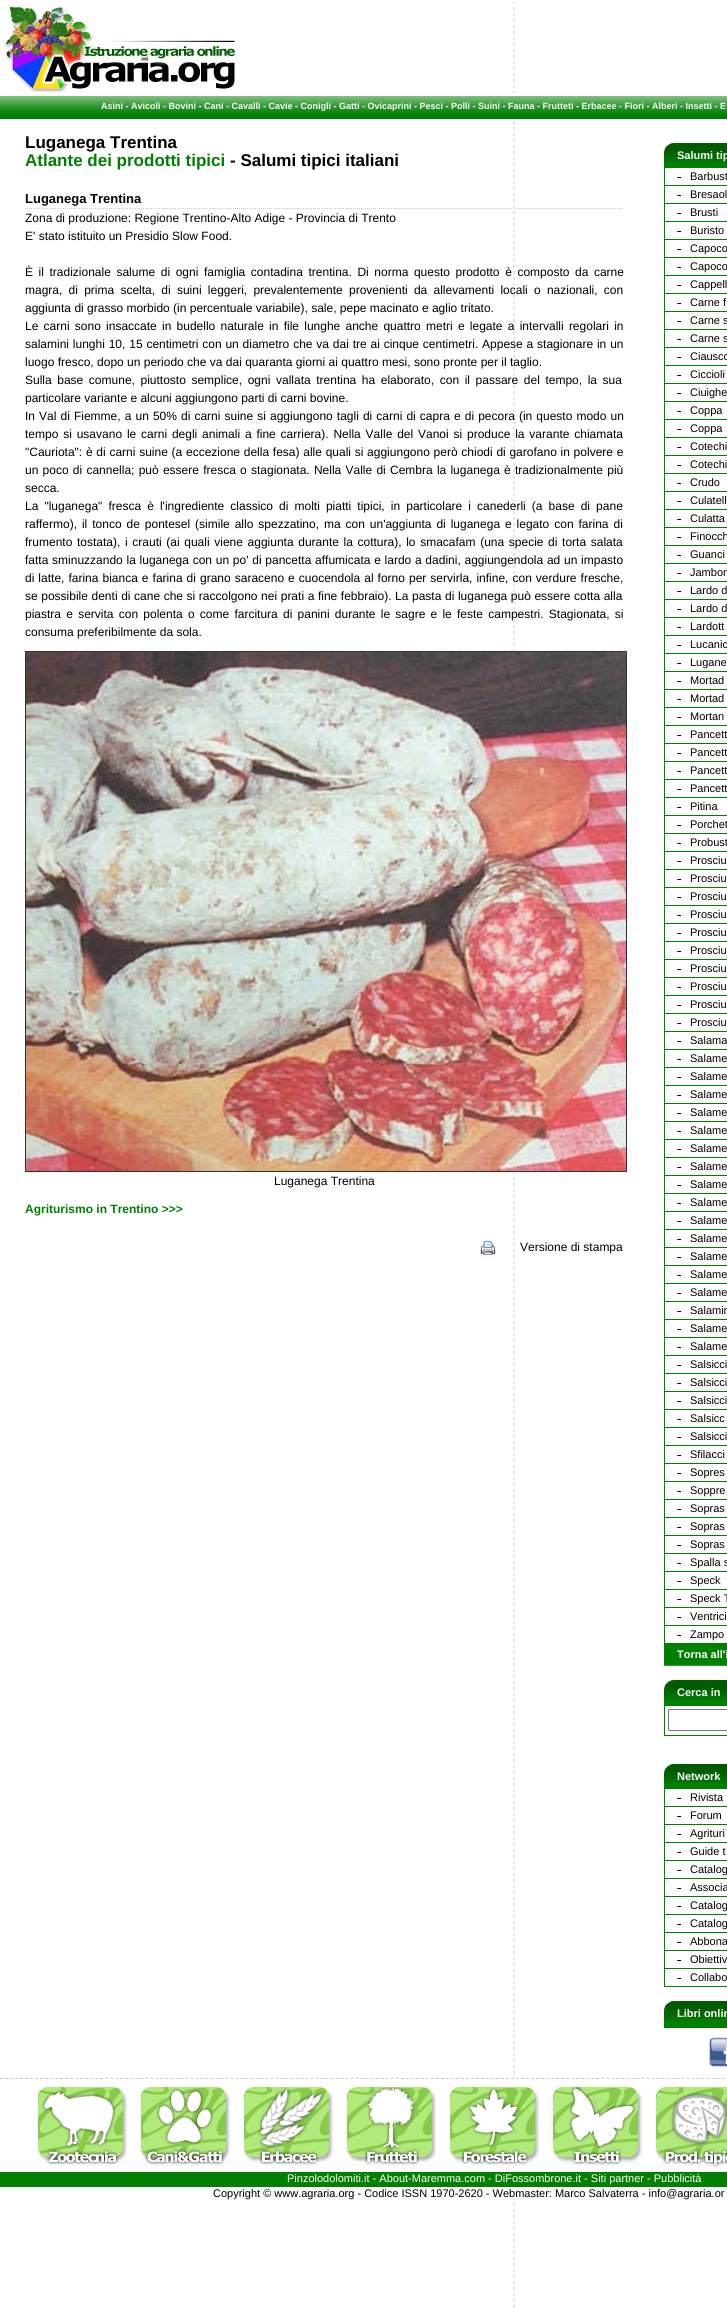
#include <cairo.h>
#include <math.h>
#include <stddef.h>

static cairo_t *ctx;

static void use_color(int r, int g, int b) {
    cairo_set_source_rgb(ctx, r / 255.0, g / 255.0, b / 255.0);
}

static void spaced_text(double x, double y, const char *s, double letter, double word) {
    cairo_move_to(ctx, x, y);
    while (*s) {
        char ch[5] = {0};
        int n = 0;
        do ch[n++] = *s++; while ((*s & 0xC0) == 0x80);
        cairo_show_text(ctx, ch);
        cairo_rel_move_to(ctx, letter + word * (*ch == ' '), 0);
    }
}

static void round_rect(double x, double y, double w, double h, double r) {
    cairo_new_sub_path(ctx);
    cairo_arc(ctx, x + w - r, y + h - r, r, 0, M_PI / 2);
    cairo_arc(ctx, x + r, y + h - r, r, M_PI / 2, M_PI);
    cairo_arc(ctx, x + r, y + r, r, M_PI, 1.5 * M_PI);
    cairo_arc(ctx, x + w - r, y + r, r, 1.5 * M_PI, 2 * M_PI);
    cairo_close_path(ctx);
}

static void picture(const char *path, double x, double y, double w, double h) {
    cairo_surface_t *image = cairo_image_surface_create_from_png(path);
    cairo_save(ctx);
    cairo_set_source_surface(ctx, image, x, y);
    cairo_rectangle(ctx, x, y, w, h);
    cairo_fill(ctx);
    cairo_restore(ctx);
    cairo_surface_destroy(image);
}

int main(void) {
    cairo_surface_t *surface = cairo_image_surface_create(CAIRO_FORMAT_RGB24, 727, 2309);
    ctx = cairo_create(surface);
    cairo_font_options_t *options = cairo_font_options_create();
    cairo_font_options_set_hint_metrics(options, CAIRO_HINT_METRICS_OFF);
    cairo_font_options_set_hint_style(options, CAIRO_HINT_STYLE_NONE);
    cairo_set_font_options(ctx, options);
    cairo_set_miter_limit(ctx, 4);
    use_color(255, 255, 255);
    cairo_paint(ctx);
    picture("img1.png", 0, 3, 727, 2306);
    use_color(255, 255, 255);
    cairo_rectangle(ctx, 513, 93, 2, 1);
    cairo_fill(ctx);
    picture("img2.png", 3, 3, 232, 90);
    use_color(0, 128, 0);
    cairo_rectangle(ctx, 0, 114, 727, 5);
    cairo_fill(ctx);
    picture("img3.png", 0, 96, 727, 18);
    cairo_select_font_face(ctx, "Liberation Sans", CAIRO_FONT_SLANT_NORMAL, CAIRO_FONT_WEIGHT_BOLD);
    cairo_set_font_size(ctx, 9);
    use_color(255, 255, 255);
    cairo_move_to(ctx, 101, 109);
    cairo_show_text(ctx, "Asini - Avicoli - Bovini - Cani - Cavalli - Cavie - Conigli - Gatti - Ovicaprini - Pesci - Polli - Suini - Fauna - Frutteti - Erbacee - Fiori - Alberi - Insetti - E");
    cairo_set_font_size(ctx, 17);
    use_color(0, 0, 0);
    cairo_move_to(ctx, 25, 148);
    cairo_show_text(ctx, "Luganega Trentina");
    use_color(0, 128, 0);
    cairo_move_to(ctx, 25, 166);
    cairo_show_text(ctx, "Atlante dei prodotti tipici");
    use_color(0, 0, 0);
    cairo_move_to(ctx, 230, 166);
    cairo_show_text(ctx, "- Salumi tipici italiani");
    cairo_new_path(ctx);
    cairo_move_to(ctx, 25, 208.5);
    cairo_line_to(ctx, 623, 208.5);
    use_color(204, 204, 204);
    cairo_set_line_width(ctx, 1);
    cairo_set_dash(ctx, (double[]){1, 1}, 2, 0);
    cairo_stroke(ctx);
    cairo_set_font_size(ctx, 13);
    use_color(0, 0, 0);
    cairo_move_to(ctx, 25, 203);
    cairo_show_text(ctx, "Luganega Trentina");
    cairo_select_font_face(ctx, "Liberation Sans", CAIRO_FONT_SLANT_NORMAL, CAIRO_FONT_WEIGHT_NORMAL);
    cairo_set_font_size(ctx, 12);
    cairo_move_to(ctx, 25, 222);
    cairo_show_text(ctx, "Zona di produzione: Regione Trentino-Alto Adige - Provincia di Trento");
    cairo_move_to(ctx, 25, 240);
    cairo_show_text(ctx, "E' stato istituito un Presidio Slow Food.");
    spaced_text(25, 276, "È il tradizionale salume di ogni famiglia contadina trentina. Di norma questo prodotto è composto da carne", 0, 2.25);
    spaced_text(25, 294, "magra, di prima scelta, di suini leggeri, prevalentemente provenienti da allevamenti locali o nazionali, con", 0, 2.9);
    cairo_move_to(ctx, 25, 312);
    cairo_show_text(ctx, "aggiunta di grasso morbido (in percentuale variabile), sale, pepe macinato e aglio tritato.");
    spaced_text(25, 330, "Le carni sono insaccate in budello naturale in file lunghe anche quattro metri e legate a intervalli regolari in", 0, 1.9);
    spaced_text(25, 348, "salamini lunghi 10, 15 centimetri con un diametro che va dai tre ai cinque centimetri. Appese a stagionare in un", 0, 0.5);
    cairo_move_to(ctx, 25, 366);
    cairo_show_text(ctx, "luogo fresco, dopo un periodo che va dai quaranta giorni ai quattro mesi, sono pronte per il taglio.");
    spaced_text(25, 384, "Sulla base comune, piuttosto semplice, ogni vallata trentina ha elaborato, con il passare del tempo, la sua", 0, 2.25);
    cairo_move_to(ctx, 25, 402);
    cairo_show_text(ctx, "particolare variante e alcuni aggiungono parti di carni bovine.");
    spaced_text(25, 420, "In Val di Fiemme, a un 50% di carni suine si aggiungono tagli di carni di capra e di pecora (in questo modo un", 0, 0.75);
    spaced_text(25, 438, "tempo si usavano le carni degli animali a fine carriera). Nella Valle del Vanoi si produce la varante chiamata", 0, 1.5);
    spaced_text(25, 456, "\"Cauriota\": è di carni suine (a eccezione della fesa) alle quali si aggiungono però chiodi di garofano in polvere e", 0, 0.4);
    spaced_text(25, 474, "un poco di cannella; può essere fresca o stagionata. Nella Valle di Cembra la luganega è tradizionalmente più", 0, 0.9);
    cairo_move_to(ctx, 25, 492);
    cairo_show_text(ctx, "secca.");
    spaced_text(25, 510, "La \"luganega\" fresca è l'ingrediente classico di molti piatti tipici, in particolare i canederli (a base di pane", 0, 2.75);
    spaced_text(25, 528, "raffermo), il tonco de pontesel (simile allo spezzatino, ma con un'aggiunta di luganega e legato con farina di", 0, 1.6);
    spaced_text(25, 546, "frumento tostata), i crauti (ai quali viene aggiunta durante la cottura), lo smacafam (una specie di torta salata", 0, 1.3);
    spaced_text(25, 564, "fatta sminuzzando la luganega con un po' di pancetta affumicata e lardo a dadini, aggiungendola ad un impasto", 0, 0.4);
    spaced_text(25, 582, "di latte, farina bianca e farina di grano saraceno e cuocendola al forno per servirla, infine, con verdure fresche,", 0, 0.7);
    spaced_text(25, 600, "se possibile denti di cane che si raccolgono nei prati a fine febbraio). La pasta di luganega può essere cotta alla", 0, 0.25);
    spaced_text(25, 618, "piastra e servita con polenta o come farcitura di panini durante le sagre e le feste campestri. Stagionata, si", 0, 1.9);
    cairo_move_to(ctx, 25, 636);
    cairo_show_text(ctx, "consuma preferibilmente da sola.");
    cairo_rectangle(ctx, 25.5, 651.5, 601, 520);
    use_color(51, 51, 51);
    cairo_set_dash(ctx, NULL, 0, 0);
    cairo_stroke(ctx);
    picture("img4.png", 26, 652, 600, 519);
    use_color(0, 0, 0);
    cairo_move_to(ctx, 274, 1185);
    cairo_show_text(ctx, "Luganega Trentina");
    cairo_select_font_face(ctx, "Liberation Sans", CAIRO_FONT_SLANT_NORMAL, CAIRO_FONT_WEIGHT_BOLD);
    use_color(0, 128, 0);
    cairo_move_to(ctx, 25, 1213);
    cairo_show_text(ctx, "Agriturismo in Trentino >>>");
    picture("img5.png", 480, 1240, 16, 15);
    cairo_select_font_face(ctx, "Liberation Sans", CAIRO_FONT_SLANT_NORMAL, CAIRO_FONT_WEIGHT_NORMAL);
    use_color(0, 0, 0);
    cairo_move_to(ctx, 520, 1251);
    cairo_show_text(ctx, "Versione di stampa");
    use_color(0, 128, 1);
    cairo_rectangle(ctx, 664, 163, 63, 5);
    cairo_fill(ctx);
    picture("img6.png", 664, 131, 63, 32);
    cairo_select_font_face(ctx, "Liberation Sans", CAIRO_FONT_SLANT_NORMAL, CAIRO_FONT_WEIGHT_BOLD);
    cairo_set_font_size(ctx, 11);
    use_color(255, 255, 255);
    cairo_move_to(ctx, 677, 159);
    cairo_show_text(ctx, "Salumi tip");
    picture("img7.png", 677, 177, 4, 1);
    use_color(0, 128, 1);
    cairo_rectangle(ctx, 664, 185, 63, 1);
    cairo_fill(ctx);
    cairo_rectangle(ctx, 664, 168, 1, 18);
    cairo_fill(ctx);
    cairo_select_font_face(ctx, "Liberation Sans", CAIRO_FONT_SLANT_NORMAL, CAIRO_FONT_WEIGHT_NORMAL);
    use_color(0, 0, 0);
    cairo_move_to(ctx, 690, 180);
    cairo_show_text(ctx, "Barbust");
    picture("img7.png", 677, 195, 4, 1);
    use_color(0, 128, 1);
    cairo_rectangle(ctx, 664, 203, 63, 1);
    cairo_fill(ctx);
    cairo_rectangle(ctx, 664, 186, 1, 18);
    cairo_fill(ctx);
    use_color(0, 0, 0);
    cairo_move_to(ctx, 690, 198);
    cairo_show_text(ctx, "Bresaol");
    picture("img7.png", 677, 213, 4, 1);
    use_color(0, 128, 1);
    cairo_rectangle(ctx, 664, 221, 63, 1);
    cairo_fill(ctx);
    cairo_rectangle(ctx, 664, 204, 1, 18);
    cairo_fill(ctx);
    use_color(0, 0, 0);
    cairo_move_to(ctx, 690, 216);
    cairo_show_text(ctx, "Brusti");
    picture("img7.png", 677, 231, 4, 1);
    use_color(0, 128, 1);
    cairo_rectangle(ctx, 664, 239, 63, 1);
    cairo_fill(ctx);
    cairo_rectangle(ctx, 664, 222, 1, 18);
    cairo_fill(ctx);
    use_color(0, 0, 0);
    cairo_move_to(ctx, 690, 234);
    cairo_show_text(ctx, "Buristo");
    picture("img7.png", 677, 249, 4, 1);
    use_color(0, 128, 1);
    cairo_rectangle(ctx, 664, 257, 63, 1);
    cairo_fill(ctx);
    cairo_rectangle(ctx, 664, 240, 1, 18);
    cairo_fill(ctx);
    use_color(0, 0, 0);
    cairo_move_to(ctx, 690, 252);
    cairo_show_text(ctx, "Capoco");
    picture("img7.png", 677, 267, 4, 1);
    use_color(0, 128, 1);
    cairo_rectangle(ctx, 664, 275, 63, 1);
    cairo_fill(ctx);
    cairo_rectangle(ctx, 664, 258, 1, 18);
    cairo_fill(ctx);
    use_color(0, 0, 0);
    cairo_move_to(ctx, 690, 270);
    cairo_show_text(ctx, "Capoco");
    picture("img7.png", 677, 285, 4, 1);
    use_color(0, 128, 1);
    cairo_rectangle(ctx, 664, 293, 63, 1);
    cairo_fill(ctx);
    cairo_rectangle(ctx, 664, 276, 1, 18);
    cairo_fill(ctx);
    use_color(0, 0, 0);
    cairo_move_to(ctx, 690, 288);
    cairo_show_text(ctx, "Cappell");
    picture("img7.png", 677, 303, 4, 1);
    use_color(0, 128, 1);
    cairo_rectangle(ctx, 664, 311, 63, 1);
    cairo_fill(ctx);
    cairo_rectangle(ctx, 664, 294, 1, 18);
    cairo_fill(ctx);
    use_color(0, 0, 0);
    cairo_move_to(ctx, 690, 306);
    cairo_show_text(ctx, "Carne f");
    picture("img7.png", 677, 321, 4, 1);
    use_color(0, 128, 1);
    cairo_rectangle(ctx, 664, 329, 63, 1);
    cairo_fill(ctx);
    cairo_rectangle(ctx, 664, 312, 1, 18);
    cairo_fill(ctx);
    use_color(0, 0, 0);
    cairo_move_to(ctx, 690, 324);
    cairo_show_text(ctx, "Carne s");
    picture("img7.png", 677, 339, 4, 1);
    use_color(0, 128, 1);
    cairo_rectangle(ctx, 664, 347, 63, 1);
    cairo_fill(ctx);
    cairo_rectangle(ctx, 664, 330, 1, 18);
    cairo_fill(ctx);
    use_color(0, 0, 0);
    cairo_move_to(ctx, 690, 342);
    cairo_show_text(ctx, "Carne s");
    picture("img7.png", 677, 357, 4, 1);
    use_color(0, 128, 1);
    cairo_rectangle(ctx, 664, 365, 63, 1);
    cairo_fill(ctx);
    cairo_rectangle(ctx, 664, 348, 1, 18);
    cairo_fill(ctx);
    use_color(0, 0, 0);
    cairo_move_to(ctx, 690, 360);
    cairo_show_text(ctx, "Ciausco");
    picture("img7.png", 677, 375, 4, 1);
    use_color(0, 128, 1);
    cairo_rectangle(ctx, 664, 383, 63, 1);
    cairo_fill(ctx);
    cairo_rectangle(ctx, 664, 366, 1, 18);
    cairo_fill(ctx);
    use_color(0, 0, 0);
    cairo_move_to(ctx, 690, 378);
    cairo_show_text(ctx, "Ciccioli");
    picture("img7.png", 677, 393, 4, 1);
    use_color(0, 128, 1);
    cairo_rectangle(ctx, 664, 401, 63, 1);
    cairo_fill(ctx);
    cairo_rectangle(ctx, 664, 384, 1, 18);
    cairo_fill(ctx);
    use_color(0, 0, 0);
    cairo_move_to(ctx, 690, 396);
    cairo_show_text(ctx, "Ciuighe");
    picture("img7.png", 677, 411, 4, 1);
    use_color(0, 128, 1);
    cairo_rectangle(ctx, 664, 419, 63, 1);
    cairo_fill(ctx);
    cairo_rectangle(ctx, 664, 402, 1, 18);
    cairo_fill(ctx);
    use_color(0, 0, 0);
    cairo_move_to(ctx, 690, 414);
    cairo_show_text(ctx, "Coppa");
    picture("img7.png", 677, 429, 4, 1);
    use_color(0, 128, 1);
    cairo_rectangle(ctx, 664, 437, 63, 1);
    cairo_fill(ctx);
    cairo_rectangle(ctx, 664, 420, 1, 18);
    cairo_fill(ctx);
    use_color(0, 0, 0);
    cairo_move_to(ctx, 690, 432);
    cairo_show_text(ctx, "Coppa");
    picture("img7.png", 677, 447, 4, 1);
    use_color(0, 128, 1);
    cairo_rectangle(ctx, 664, 455, 63, 1);
    cairo_fill(ctx);
    cairo_rectangle(ctx, 664, 438, 1, 18);
    cairo_fill(ctx);
    use_color(0, 0, 0);
    cairo_move_to(ctx, 690, 450);
    cairo_show_text(ctx, "Cotechi");
    picture("img7.png", 677, 465, 4, 1);
    use_color(0, 128, 1);
    cairo_rectangle(ctx, 664, 473, 63, 1);
    cairo_fill(ctx);
    cairo_rectangle(ctx, 664, 456, 1, 18);
    cairo_fill(ctx);
    use_color(0, 0, 0);
    cairo_move_to(ctx, 690, 468);
    cairo_show_text(ctx, "Cotechi");
    picture("img7.png", 677, 483, 4, 1);
    use_color(0, 128, 1);
    cairo_rectangle(ctx, 664, 491, 63, 1);
    cairo_fill(ctx);
    cairo_rectangle(ctx, 664, 474, 1, 18);
    cairo_fill(ctx);
    use_color(0, 0, 0);
    cairo_move_to(ctx, 690, 486);
    cairo_show_text(ctx, "Crudo");
    picture("img7.png", 677, 501, 4, 1);
    use_color(0, 128, 1);
    cairo_rectangle(ctx, 664, 509, 63, 1);
    cairo_fill(ctx);
    cairo_rectangle(ctx, 664, 492, 1, 18);
    cairo_fill(ctx);
    use_color(0, 0, 0);
    cairo_move_to(ctx, 690, 504);
    cairo_show_text(ctx, "Culatell");
    picture("img7.png", 677, 519, 4, 1);
    use_color(0, 128, 1);
    cairo_rectangle(ctx, 664, 527, 63, 1);
    cairo_fill(ctx);
    cairo_rectangle(ctx, 664, 510, 1, 18);
    cairo_fill(ctx);
    use_color(0, 0, 0);
    cairo_move_to(ctx, 690, 522);
    cairo_show_text(ctx, "Culatta");
    picture("img7.png", 677, 537, 4, 1);
    use_color(0, 128, 1);
    cairo_rectangle(ctx, 664, 545, 63, 1);
    cairo_fill(ctx);
    cairo_rectangle(ctx, 664, 528, 1, 18);
    cairo_fill(ctx);
    use_color(0, 0, 0);
    cairo_move_to(ctx, 690, 540);
    cairo_show_text(ctx, "Finocch");
    picture("img7.png", 677, 555, 4, 1);
    use_color(0, 128, 1);
    cairo_rectangle(ctx, 664, 563, 63, 1);
    cairo_fill(ctx);
    cairo_rectangle(ctx, 664, 546, 1, 18);
    cairo_fill(ctx);
    use_color(0, 0, 0);
    cairo_move_to(ctx, 690, 558);
    cairo_show_text(ctx, "Guanci");
    picture("img7.png", 677, 573, 4, 1);
    use_color(0, 128, 1);
    cairo_rectangle(ctx, 664, 581, 63, 1);
    cairo_fill(ctx);
    cairo_rectangle(ctx, 664, 564, 1, 18);
    cairo_fill(ctx);
    use_color(0, 0, 0);
    cairo_move_to(ctx, 690, 576);
    cairo_show_text(ctx, "Jambon");
    picture("img7.png", 677, 591, 4, 1);
    use_color(0, 128, 1);
    cairo_rectangle(ctx, 664, 599, 63, 1);
    cairo_fill(ctx);
    cairo_rectangle(ctx, 664, 582, 1, 18);
    cairo_fill(ctx);
    use_color(0, 0, 0);
    cairo_move_to(ctx, 690, 594);
    cairo_show_text(ctx, "Lardo d");
    picture("img7.png", 677, 609, 4, 1);
    use_color(0, 128, 1);
    cairo_rectangle(ctx, 664, 617, 63, 1);
    cairo_fill(ctx);
    cairo_rectangle(ctx, 664, 600, 1, 18);
    cairo_fill(ctx);
    use_color(0, 0, 0);
    cairo_move_to(ctx, 690, 612);
    cairo_show_text(ctx, "Lardo d");
    picture("img7.png", 677, 627, 4, 1);
    use_color(0, 128, 1);
    cairo_rectangle(ctx, 664, 635, 63, 1);
    cairo_fill(ctx);
    cairo_rectangle(ctx, 664, 618, 1, 18);
    cairo_fill(ctx);
    use_color(0, 0, 0);
    cairo_move_to(ctx, 690, 630);
    cairo_show_text(ctx, "Lardott");
    picture("img7.png", 677, 645, 4, 1);
    use_color(0, 128, 1);
    cairo_rectangle(ctx, 664, 653, 63, 1);
    cairo_fill(ctx);
    cairo_rectangle(ctx, 664, 636, 1, 18);
    cairo_fill(ctx);
    use_color(0, 0, 0);
    cairo_move_to(ctx, 690, 648);
    cairo_show_text(ctx, "Lucanic");
    picture("img7.png", 677, 663, 4, 1);
    use_color(0, 128, 1);
    cairo_rectangle(ctx, 664, 671, 63, 1);
    cairo_fill(ctx);
    cairo_rectangle(ctx, 664, 654, 1, 18);
    cairo_fill(ctx);
    use_color(0, 0, 0);
    cairo_move_to(ctx, 690, 666);
    cairo_show_text(ctx, "Lugane");
    picture("img7.png", 677, 681, 4, 1);
    use_color(0, 128, 1);
    cairo_rectangle(ctx, 664, 689, 63, 1);
    cairo_fill(ctx);
    cairo_rectangle(ctx, 664, 672, 1, 18);
    cairo_fill(ctx);
    use_color(0, 0, 0);
    cairo_move_to(ctx, 690, 684);
    cairo_show_text(ctx, "Mortad");
    picture("img7.png", 677, 699, 4, 1);
    use_color(0, 128, 1);
    cairo_rectangle(ctx, 664, 707, 63, 1);
    cairo_fill(ctx);
    cairo_rectangle(ctx, 664, 690, 1, 18);
    cairo_fill(ctx);
    use_color(0, 0, 0);
    cairo_move_to(ctx, 690, 702);
    cairo_show_text(ctx, "Mortad");
    picture("img7.png", 677, 717, 4, 1);
    use_color(0, 128, 1);
    cairo_rectangle(ctx, 664, 725, 63, 1);
    cairo_fill(ctx);
    cairo_rectangle(ctx, 664, 708, 1, 18);
    cairo_fill(ctx);
    use_color(0, 0, 0);
    cairo_move_to(ctx, 690, 720);
    cairo_show_text(ctx, "Mortan");
    picture("img7.png", 677, 735, 4, 1);
    use_color(0, 128, 1);
    cairo_rectangle(ctx, 664, 743, 63, 1);
    cairo_fill(ctx);
    cairo_rectangle(ctx, 664, 726, 1, 18);
    cairo_fill(ctx);
    use_color(0, 0, 0);
    cairo_move_to(ctx, 690, 738);
    cairo_show_text(ctx, "Pancett");
    picture("img7.png", 677, 753, 4, 1);
    use_color(0, 128, 1);
    cairo_rectangle(ctx, 664, 761, 63, 1);
    cairo_fill(ctx);
    cairo_rectangle(ctx, 664, 744, 1, 18);
    cairo_fill(ctx);
    use_color(0, 0, 0);
    cairo_move_to(ctx, 690, 756);
    cairo_show_text(ctx, "Pancett");
    picture("img7.png", 677, 771, 4, 1);
    use_color(0, 128, 1);
    cairo_rectangle(ctx, 664, 779, 63, 1);
    cairo_fill(ctx);
    cairo_rectangle(ctx, 664, 762, 1, 18);
    cairo_fill(ctx);
    use_color(0, 0, 0);
    cairo_move_to(ctx, 690, 774);
    cairo_show_text(ctx, "Pancett");
    picture("img7.png", 677, 789, 4, 1);
    use_color(0, 128, 1);
    cairo_rectangle(ctx, 664, 797, 63, 1);
    cairo_fill(ctx);
    cairo_rectangle(ctx, 664, 780, 1, 18);
    cairo_fill(ctx);
    use_color(0, 0, 0);
    cairo_move_to(ctx, 690, 792);
    cairo_show_text(ctx, "Pancett");
    picture("img7.png", 677, 807, 4, 1);
    use_color(0, 128, 1);
    cairo_rectangle(ctx, 664, 815, 63, 1);
    cairo_fill(ctx);
    cairo_rectangle(ctx, 664, 798, 1, 18);
    cairo_fill(ctx);
    use_color(0, 0, 0);
    cairo_move_to(ctx, 690, 810);
    cairo_show_text(ctx, "Pitina");
    picture("img7.png", 677, 825, 4, 1);
    use_color(0, 128, 1);
    cairo_rectangle(ctx, 664, 833, 63, 1);
    cairo_fill(ctx);
    cairo_rectangle(ctx, 664, 816, 1, 18);
    cairo_fill(ctx);
    use_color(0, 0, 0);
    cairo_move_to(ctx, 690, 828);
    cairo_show_text(ctx, "Porchet");
    picture("img7.png", 677, 843, 4, 1);
    use_color(0, 128, 1);
    cairo_rectangle(ctx, 664, 851, 63, 1);
    cairo_fill(ctx);
    cairo_rectangle(ctx, 664, 834, 1, 18);
    cairo_fill(ctx);
    use_color(0, 0, 0);
    cairo_move_to(ctx, 690, 846);
    cairo_show_text(ctx, "Probust");
    picture("img7.png", 677, 861, 4, 1);
    use_color(0, 128, 1);
    cairo_rectangle(ctx, 664, 869, 63, 1);
    cairo_fill(ctx);
    cairo_rectangle(ctx, 664, 852, 1, 18);
    cairo_fill(ctx);
    use_color(0, 0, 0);
    cairo_move_to(ctx, 690, 864);
    cairo_show_text(ctx, "Prosciu");
    picture("img7.png", 677, 879, 4, 1);
    use_color(0, 128, 1);
    cairo_rectangle(ctx, 664, 887, 63, 1);
    cairo_fill(ctx);
    cairo_rectangle(ctx, 664, 870, 1, 18);
    cairo_fill(ctx);
    use_color(0, 0, 0);
    cairo_move_to(ctx, 690, 882);
    cairo_show_text(ctx, "Prosciu");
    picture("img7.png", 677, 897, 4, 1);
    use_color(0, 128, 1);
    cairo_rectangle(ctx, 664, 905, 63, 1);
    cairo_fill(ctx);
    cairo_rectangle(ctx, 664, 888, 1, 18);
    cairo_fill(ctx);
    use_color(0, 0, 0);
    cairo_move_to(ctx, 690, 900);
    cairo_show_text(ctx, "Prosciu");
    picture("img7.png", 677, 915, 4, 1);
    use_color(0, 128, 1);
    cairo_rectangle(ctx, 664, 923, 63, 1);
    cairo_fill(ctx);
    cairo_rectangle(ctx, 664, 906, 1, 18);
    cairo_fill(ctx);
    use_color(0, 0, 0);
    cairo_move_to(ctx, 690, 918);
    cairo_show_text(ctx, "Prosciu");
    picture("img7.png", 677, 933, 4, 1);
    use_color(0, 128, 1);
    cairo_rectangle(ctx, 664, 941, 63, 1);
    cairo_fill(ctx);
    cairo_rectangle(ctx, 664, 924, 1, 18);
    cairo_fill(ctx);
    use_color(0, 0, 0);
    cairo_move_to(ctx, 690, 936);
    cairo_show_text(ctx, "Prosciu");
    picture("img7.png", 677, 951, 4, 1);
    use_color(0, 128, 1);
    cairo_rectangle(ctx, 664, 959, 63, 1);
    cairo_fill(ctx);
    cairo_rectangle(ctx, 664, 942, 1, 18);
    cairo_fill(ctx);
    use_color(0, 0, 0);
    cairo_move_to(ctx, 690, 954);
    cairo_show_text(ctx, "Prosciu");
    picture("img7.png", 677, 969, 4, 1);
    use_color(0, 128, 1);
    cairo_rectangle(ctx, 664, 977, 63, 1);
    cairo_fill(ctx);
    cairo_rectangle(ctx, 664, 960, 1, 18);
    cairo_fill(ctx);
    use_color(0, 0, 0);
    cairo_move_to(ctx, 690, 972);
    cairo_show_text(ctx, "Prosciu");
    picture("img7.png", 677, 987, 4, 1);
    use_color(0, 128, 1);
    cairo_rectangle(ctx, 664, 995, 63, 1);
    cairo_fill(ctx);
    cairo_rectangle(ctx, 664, 978, 1, 18);
    cairo_fill(ctx);
    use_color(0, 0, 0);
    cairo_move_to(ctx, 690, 990);
    cairo_show_text(ctx, "Prosciu");
    picture("img7.png", 677, 1005, 4, 1);
    use_color(0, 128, 1);
    cairo_rectangle(ctx, 664, 1013, 63, 1);
    cairo_fill(ctx);
    cairo_rectangle(ctx, 664, 996, 1, 18);
    cairo_fill(ctx);
    use_color(0, 0, 0);
    cairo_move_to(ctx, 690, 1008);
    cairo_show_text(ctx, "Prosciu");
    picture("img7.png", 677, 1023, 4, 1);
    use_color(0, 128, 1);
    cairo_rectangle(ctx, 664, 1031, 63, 1);
    cairo_fill(ctx);
    cairo_rectangle(ctx, 664, 1014, 1, 18);
    cairo_fill(ctx);
    use_color(0, 0, 0);
    cairo_move_to(ctx, 690, 1026);
    cairo_show_text(ctx, "Prosciu");
    picture("img7.png", 677, 1041, 4, 1);
    use_color(0, 128, 1);
    cairo_rectangle(ctx, 664, 1049, 63, 1);
    cairo_fill(ctx);
    cairo_rectangle(ctx, 664, 1032, 1, 18);
    cairo_fill(ctx);
    use_color(0, 0, 0);
    cairo_move_to(ctx, 690, 1044);
    cairo_show_text(ctx, "Salama");
    picture("img7.png", 677, 1059, 4, 1);
    use_color(0, 128, 1);
    cairo_rectangle(ctx, 664, 1067, 63, 1);
    cairo_fill(ctx);
    cairo_rectangle(ctx, 664, 1050, 1, 18);
    cairo_fill(ctx);
    use_color(0, 0, 0);
    cairo_move_to(ctx, 690, 1062);
    cairo_show_text(ctx, "Salame");
    picture("img7.png", 677, 1077, 4, 1);
    use_color(0, 128, 1);
    cairo_rectangle(ctx, 664, 1085, 63, 1);
    cairo_fill(ctx);
    cairo_rectangle(ctx, 664, 1068, 1, 18);
    cairo_fill(ctx);
    use_color(0, 0, 0);
    cairo_move_to(ctx, 690, 1080);
    cairo_show_text(ctx, "Salame");
    picture("img7.png", 677, 1095, 4, 1);
    use_color(0, 128, 1);
    cairo_rectangle(ctx, 664, 1103, 63, 1);
    cairo_fill(ctx);
    cairo_rectangle(ctx, 664, 1086, 1, 18);
    cairo_fill(ctx);
    use_color(0, 0, 0);
    cairo_move_to(ctx, 690, 1098);
    cairo_show_text(ctx, "Salame");
    picture("img7.png", 677, 1113, 4, 1);
    use_color(0, 128, 1);
    cairo_rectangle(ctx, 664, 1121, 63, 1);
    cairo_fill(ctx);
    cairo_rectangle(ctx, 664, 1104, 1, 18);
    cairo_fill(ctx);
    use_color(0, 0, 0);
    cairo_move_to(ctx, 690, 1116);
    cairo_show_text(ctx, "Salame");
    picture("img7.png", 677, 1131, 4, 1);
    use_color(0, 128, 1);
    cairo_rectangle(ctx, 664, 1139, 63, 1);
    cairo_fill(ctx);
    cairo_rectangle(ctx, 664, 1122, 1, 18);
    cairo_fill(ctx);
    use_color(0, 0, 0);
    cairo_move_to(ctx, 690, 1134);
    cairo_show_text(ctx, "Salame");
    picture("img7.png", 677, 1149, 4, 1);
    use_color(0, 128, 1);
    cairo_rectangle(ctx, 664, 1157, 63, 1);
    cairo_fill(ctx);
    cairo_rectangle(ctx, 664, 1140, 1, 18);
    cairo_fill(ctx);
    use_color(0, 0, 0);
    cairo_move_to(ctx, 690, 1152);
    cairo_show_text(ctx, "Salame");
    picture("img7.png", 677, 1167, 4, 1);
    use_color(0, 128, 1);
    cairo_rectangle(ctx, 664, 1175, 63, 1);
    cairo_fill(ctx);
    cairo_rectangle(ctx, 664, 1158, 1, 18);
    cairo_fill(ctx);
    use_color(0, 0, 0);
    cairo_move_to(ctx, 690, 1170);
    cairo_show_text(ctx, "Salame");
    picture("img7.png", 677, 1185, 4, 1);
    use_color(0, 128, 1);
    cairo_rectangle(ctx, 664, 1193, 63, 1);
    cairo_fill(ctx);
    cairo_rectangle(ctx, 664, 1176, 1, 18);
    cairo_fill(ctx);
    use_color(0, 0, 0);
    cairo_move_to(ctx, 690, 1188);
    cairo_show_text(ctx, "Salame");
    picture("img7.png", 677, 1203, 4, 1);
    use_color(0, 128, 1);
    cairo_rectangle(ctx, 664, 1211, 63, 1);
    cairo_fill(ctx);
    cairo_rectangle(ctx, 664, 1194, 1, 18);
    cairo_fill(ctx);
    use_color(0, 0, 0);
    cairo_move_to(ctx, 690, 1206);
    cairo_show_text(ctx, "Salame");
    picture("img7.png", 677, 1221, 4, 1);
    use_color(0, 128, 1);
    cairo_rectangle(ctx, 664, 1229, 63, 1);
    cairo_fill(ctx);
    cairo_rectangle(ctx, 664, 1212, 1, 18);
    cairo_fill(ctx);
    use_color(0, 0, 0);
    cairo_move_to(ctx, 690, 1224);
    cairo_show_text(ctx, "Salame");
    picture("img7.png", 677, 1239, 4, 1);
    use_color(0, 128, 1);
    cairo_rectangle(ctx, 664, 1247, 63, 1);
    cairo_fill(ctx);
    cairo_rectangle(ctx, 664, 1230, 1, 18);
    cairo_fill(ctx);
    use_color(0, 0, 0);
    cairo_move_to(ctx, 690, 1242);
    cairo_show_text(ctx, "Salame");
    picture("img7.png", 677, 1257, 4, 1);
    use_color(0, 128, 1);
    cairo_rectangle(ctx, 664, 1265, 63, 1);
    cairo_fill(ctx);
    cairo_rectangle(ctx, 664, 1248, 1, 18);
    cairo_fill(ctx);
    use_color(0, 0, 0);
    cairo_move_to(ctx, 690, 1260);
    cairo_show_text(ctx, "Salame");
    picture("img7.png", 677, 1275, 4, 1);
    use_color(0, 128, 1);
    cairo_rectangle(ctx, 664, 1283, 63, 1);
    cairo_fill(ctx);
    cairo_rectangle(ctx, 664, 1266, 1, 18);
    cairo_fill(ctx);
    use_color(0, 0, 0);
    cairo_move_to(ctx, 690, 1278);
    cairo_show_text(ctx, "Salame");
    picture("img7.png", 677, 1293, 4, 1);
    use_color(0, 128, 1);
    cairo_rectangle(ctx, 664, 1301, 63, 1);
    cairo_fill(ctx);
    cairo_rectangle(ctx, 664, 1284, 1, 18);
    cairo_fill(ctx);
    use_color(0, 0, 0);
    cairo_move_to(ctx, 690, 1296);
    cairo_show_text(ctx, "Salame");
    picture("img7.png", 677, 1311, 4, 1);
    use_color(0, 128, 1);
    cairo_rectangle(ctx, 664, 1319, 63, 1);
    cairo_fill(ctx);
    cairo_rectangle(ctx, 664, 1302, 1, 18);
    cairo_fill(ctx);
    use_color(0, 0, 0);
    cairo_move_to(ctx, 690, 1314);
    cairo_show_text(ctx, "Salamin");
    picture("img7.png", 677, 1329, 4, 1);
    use_color(0, 128, 1);
    cairo_rectangle(ctx, 664, 1337, 63, 1);
    cairo_fill(ctx);
    cairo_rectangle(ctx, 664, 1320, 1, 18);
    cairo_fill(ctx);
    use_color(0, 0, 0);
    cairo_move_to(ctx, 690, 1332);
    cairo_show_text(ctx, "Salame");
    picture("img7.png", 677, 1347, 4, 1);
    use_color(0, 128, 1);
    cairo_rectangle(ctx, 664, 1355, 63, 1);
    cairo_fill(ctx);
    cairo_rectangle(ctx, 664, 1338, 1, 18);
    cairo_fill(ctx);
    use_color(0, 0, 0);
    cairo_move_to(ctx, 690, 1350);
    cairo_show_text(ctx, "Salame");
    picture("img7.png", 677, 1365, 4, 1);
    use_color(0, 128, 1);
    cairo_rectangle(ctx, 664, 1373, 63, 1);
    cairo_fill(ctx);
    cairo_rectangle(ctx, 664, 1356, 1, 18);
    cairo_fill(ctx);
    use_color(0, 0, 0);
    cairo_move_to(ctx, 690, 1368);
    cairo_show_text(ctx, "Salsicci");
    picture("img7.png", 677, 1383, 4, 1);
    use_color(0, 128, 1);
    cairo_rectangle(ctx, 664, 1391, 63, 1);
    cairo_fill(ctx);
    cairo_rectangle(ctx, 664, 1374, 1, 18);
    cairo_fill(ctx);
    use_color(0, 0, 0);
    cairo_move_to(ctx, 690, 1386);
    cairo_show_text(ctx, "Salsicci");
    picture("img7.png", 677, 1401, 4, 1);
    use_color(0, 128, 1);
    cairo_rectangle(ctx, 664, 1409, 63, 1);
    cairo_fill(ctx);
    cairo_rectangle(ctx, 664, 1392, 1, 18);
    cairo_fill(ctx);
    use_color(0, 0, 0);
    cairo_move_to(ctx, 690, 1404);
    cairo_show_text(ctx, "Salsicci");
    picture("img7.png", 677, 1419, 4, 1);
    use_color(0, 128, 1);
    cairo_rectangle(ctx, 664, 1427, 63, 1);
    cairo_fill(ctx);
    cairo_rectangle(ctx, 664, 1410, 1, 18);
    cairo_fill(ctx);
    use_color(0, 0, 0);
    cairo_move_to(ctx, 690, 1422);
    cairo_show_text(ctx, "Salsicc");
    picture("img7.png", 677, 1437, 4, 1);
    use_color(0, 128, 1);
    cairo_rectangle(ctx, 664, 1445, 63, 1);
    cairo_fill(ctx);
    cairo_rectangle(ctx, 664, 1428, 1, 18);
    cairo_fill(ctx);
    use_color(0, 0, 0);
    cairo_move_to(ctx, 690, 1440);
    cairo_show_text(ctx, "Salsicci");
    picture("img7.png", 677, 1455, 4, 1);
    use_color(0, 128, 1);
    cairo_rectangle(ctx, 664, 1463, 63, 1);
    cairo_fill(ctx);
    cairo_rectangle(ctx, 664, 1446, 1, 18);
    cairo_fill(ctx);
    use_color(0, 0, 0);
    cairo_move_to(ctx, 690, 1458);
    cairo_show_text(ctx, "Sfilacci");
    picture("img7.png", 677, 1473, 4, 1);
    use_color(0, 128, 1);
    cairo_rectangle(ctx, 664, 1481, 63, 1);
    cairo_fill(ctx);
    cairo_rectangle(ctx, 664, 1464, 1, 18);
    cairo_fill(ctx);
    use_color(0, 0, 0);
    cairo_move_to(ctx, 690, 1476);
    cairo_show_text(ctx, "Sopres");
    picture("img7.png", 677, 1491, 4, 1);
    use_color(0, 128, 1);
    cairo_rectangle(ctx, 664, 1499, 63, 1);
    cairo_fill(ctx);
    cairo_rectangle(ctx, 664, 1482, 1, 18);
    cairo_fill(ctx);
    use_color(0, 0, 0);
    cairo_move_to(ctx, 690, 1494);
    cairo_show_text(ctx, "Soppre");
    picture("img7.png", 677, 1509, 4, 1);
    use_color(0, 128, 1);
    cairo_rectangle(ctx, 664, 1517, 63, 1);
    cairo_fill(ctx);
    cairo_rectangle(ctx, 664, 1500, 1, 18);
    cairo_fill(ctx);
    use_color(0, 0, 0);
    cairo_move_to(ctx, 690, 1512);
    cairo_show_text(ctx, "Sopras");
    picture("img7.png", 677, 1527, 4, 1);
    use_color(0, 128, 1);
    cairo_rectangle(ctx, 664, 1535, 63, 1);
    cairo_fill(ctx);
    cairo_rectangle(ctx, 664, 1518, 1, 18);
    cairo_fill(ctx);
    use_color(0, 0, 0);
    cairo_move_to(ctx, 690, 1530);
    cairo_show_text(ctx, "Sopras");
    picture("img7.png", 677, 1545, 4, 1);
    use_color(0, 128, 1);
    cairo_rectangle(ctx, 664, 1553, 63, 1);
    cairo_fill(ctx);
    cairo_rectangle(ctx, 664, 1536, 1, 18);
    cairo_fill(ctx);
    use_color(0, 0, 0);
    cairo_move_to(ctx, 690, 1548);
    cairo_show_text(ctx, "Sopras");
    picture("img7.png", 677, 1563, 4, 1);
    use_color(0, 128, 1);
    cairo_rectangle(ctx, 664, 1571, 63, 1);
    cairo_fill(ctx);
    cairo_rectangle(ctx, 664, 1554, 1, 18);
    cairo_fill(ctx);
    use_color(0, 0, 0);
    cairo_move_to(ctx, 690, 1566);
    cairo_show_text(ctx, "Spalla s");
    picture("img7.png", 677, 1581, 4, 1);
    use_color(0, 128, 1);
    cairo_rectangle(ctx, 664, 1589, 63, 1);
    cairo_fill(ctx);
    cairo_rectangle(ctx, 664, 1572, 1, 18);
    cairo_fill(ctx);
    use_color(0, 0, 0);
    cairo_move_to(ctx, 690, 1584);
    cairo_show_text(ctx, "Speck");
    picture("img7.png", 677, 1599, 4, 1);
    use_color(0, 128, 1);
    cairo_rectangle(ctx, 664, 1607, 63, 1);
    cairo_fill(ctx);
    cairo_rectangle(ctx, 664, 1590, 1, 18);
    cairo_fill(ctx);
    use_color(0, 0, 0);
    cairo_move_to(ctx, 690, 1602);
    cairo_show_text(ctx, "Speck T");
    picture("img7.png", 677, 1617, 4, 1);
    use_color(0, 128, 1);
    cairo_rectangle(ctx, 664, 1625, 63, 1);
    cairo_fill(ctx);
    cairo_rectangle(ctx, 664, 1608, 1, 18);
    cairo_fill(ctx);
    use_color(0, 0, 0);
    cairo_move_to(ctx, 690, 1620);
    cairo_show_text(ctx, "Ventrici");
    picture("img7.png", 677, 1635, 4, 1);
    use_color(0, 128, 1);
    cairo_rectangle(ctx, 664, 1643, 63, 1);
    cairo_fill(ctx);
    cairo_rectangle(ctx, 664, 1626, 1, 18);
    cairo_fill(ctx);
    use_color(0, 0, 0);
    cairo_move_to(ctx, 690, 1638);
    cairo_show_text(ctx, "Zampo");
    use_color(0, 128, 1);
    cairo_rectangle(ctx, 664, 1644, 63, 21);
    cairo_fill(ctx);
    use_color(53, 153, 53);
    cairo_rectangle(ctx, 664, 1665, 63, 1);
    cairo_fill(ctx);
    cairo_select_font_face(ctx, "Liberation Sans", CAIRO_FONT_SLANT_NORMAL, CAIRO_FONT_WEIGHT_BOLD);
    use_color(255, 255, 255);
    cairo_move_to(ctx, 677, 1658);
    cairo_show_text(ctx, "Torna all'i");
    use_color(0, 128, 1);
    cairo_rectangle(ctx, 664, 1700, 63, 5);
    cairo_fill(ctx);
    picture("img6.png", 664, 1668, 63, 32);
    use_color(255, 255, 255);
    cairo_move_to(ctx, 677, 1696);
    cairo_show_text(ctx, "Cerca in");
    cairo_rectangle(ctx, 664.5, 1705.5, 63, 30);
    use_color(0, 128, 0);
    cairo_stroke(ctx);
    round_rect(668.5, 1709.5, 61, 21, 1.5);
    use_color(118, 118, 118);
    cairo_stroke(ctx);
    use_color(0, 128, 1);
    cairo_rectangle(ctx, 664, 1784, 63, 5);
    cairo_fill(ctx);
    picture("img6.png", 664, 1752, 63, 32);
    use_color(255, 255, 255);
    cairo_move_to(ctx, 677, 1780);
    cairo_show_text(ctx, "Network");
    picture("img7.png", 677, 1798, 4, 1);
    use_color(0, 128, 1);
    cairo_rectangle(ctx, 664, 1806, 63, 1);
    cairo_fill(ctx);
    cairo_rectangle(ctx, 664, 1789, 1, 18);
    cairo_fill(ctx);
    cairo_select_font_face(ctx, "Liberation Sans", CAIRO_FONT_SLANT_NORMAL, CAIRO_FONT_WEIGHT_NORMAL);
    use_color(0, 0, 0);
    cairo_move_to(ctx, 690, 1801);
    cairo_show_text(ctx, "Rivista");
    picture("img7.png", 677, 1816, 4, 1);
    use_color(0, 128, 1);
    cairo_rectangle(ctx, 664, 1824, 63, 1);
    cairo_fill(ctx);
    cairo_rectangle(ctx, 664, 1807, 1, 18);
    cairo_fill(ctx);
    use_color(0, 0, 0);
    cairo_move_to(ctx, 690, 1819);
    cairo_show_text(ctx, "Forum");
    picture("img7.png", 677, 1834, 4, 1);
    use_color(0, 128, 1);
    cairo_rectangle(ctx, 664, 1842, 63, 1);
    cairo_fill(ctx);
    cairo_rectangle(ctx, 664, 1825, 1, 18);
    cairo_fill(ctx);
    use_color(0, 0, 0);
    cairo_move_to(ctx, 690, 1837);
    cairo_show_text(ctx, "Agrituri");
    picture("img7.png", 677, 1852, 4, 1);
    use_color(0, 128, 1);
    cairo_rectangle(ctx, 664, 1860, 63, 1);
    cairo_fill(ctx);
    cairo_rectangle(ctx, 664, 1843, 1, 18);
    cairo_fill(ctx);
    use_color(0, 0, 0);
    cairo_move_to(ctx, 690, 1855);
    cairo_show_text(ctx, "Guide t");
    picture("img7.png", 677, 1870, 4, 1);
    use_color(0, 128, 1);
    cairo_rectangle(ctx, 664, 1878, 63, 1);
    cairo_fill(ctx);
    cairo_rectangle(ctx, 664, 1861, 1, 18);
    cairo_fill(ctx);
    use_color(0, 0, 0);
    cairo_move_to(ctx, 690, 1873);
    cairo_show_text(ctx, "Catalog");
    picture("img7.png", 677, 1888, 4, 1);
    use_color(0, 128, 1);
    cairo_rectangle(ctx, 664, 1896, 63, 1);
    cairo_fill(ctx);
    cairo_rectangle(ctx, 664, 1879, 1, 18);
    cairo_fill(ctx);
    use_color(0, 0, 0);
    cairo_move_to(ctx, 690, 1891);
    cairo_show_text(ctx, "Associa");
    picture("img7.png", 677, 1906, 4, 1);
    use_color(0, 128, 1);
    cairo_rectangle(ctx, 664, 1914, 63, 1);
    cairo_fill(ctx);
    cairo_rectangle(ctx, 664, 1897, 1, 18);
    cairo_fill(ctx);
    use_color(0, 0, 0);
    cairo_move_to(ctx, 690, 1909);
    cairo_show_text(ctx, "Catalog");
    picture("img7.png", 677, 1924, 4, 1);
    use_color(0, 128, 1);
    cairo_rectangle(ctx, 664, 1932, 63, 1);
    cairo_fill(ctx);
    cairo_rectangle(ctx, 664, 1915, 1, 18);
    cairo_fill(ctx);
    use_color(0, 0, 0);
    cairo_move_to(ctx, 690, 1927);
    cairo_show_text(ctx, "Catalog");
    picture("img7.png", 677, 1942, 4, 1);
    use_color(0, 128, 1);
    cairo_rectangle(ctx, 664, 1950, 63, 1);
    cairo_fill(ctx);
    cairo_rectangle(ctx, 664, 1933, 1, 18);
    cairo_fill(ctx);
    use_color(0, 0, 0);
    cairo_move_to(ctx, 690, 1945);
    cairo_show_text(ctx, "Abbona");
    picture("img7.png", 677, 1960, 4, 1);
    use_color(0, 128, 1);
    cairo_rectangle(ctx, 664, 1968, 63, 1);
    cairo_fill(ctx);
    cairo_rectangle(ctx, 664, 1951, 1, 18);
    cairo_fill(ctx);
    use_color(0, 0, 0);
    cairo_move_to(ctx, 690, 1963);
    cairo_show_text(ctx, "Obiettiv");
    picture("img7.png", 677, 1978, 4, 1);
    use_color(0, 128, 1);
    cairo_rectangle(ctx, 664, 1986, 63, 1);
    cairo_fill(ctx);
    cairo_rectangle(ctx, 664, 1969, 1, 18);
    cairo_fill(ctx);
    use_color(0, 0, 0);
    cairo_move_to(ctx, 690, 1981);
    cairo_show_text(ctx, "Collabo");
    use_color(0, 128, 1);
    cairo_rectangle(ctx, 664, 2021, 63, 5);
    cairo_fill(ctx);
    picture("img6.png", 664, 1989, 63, 32);
    cairo_select_font_face(ctx, "Liberation Sans", CAIRO_FONT_SLANT_NORMAL, CAIRO_FONT_WEIGHT_BOLD);
    use_color(255, 255, 255);
    cairo_move_to(ctx, 677, 2017);
    cairo_show_text(ctx, "Libri onlin");
    use_color(0, 128, 1);
    cairo_rectangle(ctx, 664, 2026, 63, 2);
    cairo_fill(ctx);
    picture("img8.png", 709, 2037, 18, 30);
    use_color(255, 255, 255);
    cairo_rectangle(ctx, 513, 2078, 2, 92);
    cairo_fill(ctx);
    cairo_new_path(ctx);
    cairo_move_to(ctx, 0, 2078.5);
    cairo_line_to(ctx, 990, 2078.5);
    use_color(204, 204, 204);
    cairo_set_dash(ctx, (double[]){3, 2.01}, 2, 0);
    cairo_stroke(ctx);
    picture("img9.png", 38, 2087, 90, 78);
    picture("img10.png", 141, 2087, 90, 78);
    picture("img11.png", 244, 2087, 90, 78);
    picture("img12.png", 347, 2087, 90, 78);
    picture("img13.png", 450, 2087, 90, 78);
    picture("img14.png", 553, 2087, 90, 78);
    picture("img15.png", 656, 2087, 71, 81);
    use_color(2, 128, 2);
    cairo_rectangle(ctx, 0, 2172, 727, 15);
    cairo_fill(ctx);
    cairo_select_font_face(ctx, "Liberation Sans", CAIRO_FONT_SLANT_NORMAL, CAIRO_FONT_WEIGHT_NORMAL);
    use_color(255, 255, 255);
    cairo_move_to(ctx, 287, 2182);
    cairo_show_text(ctx, "Pinzolodolomiti.it - About-Maremma.com - DiFossombrone.it - Siti partner - Pubblicità");
    cairo_rectangle(ctx, 513, 2187, 2, 12);
    cairo_fill(ctx);
    use_color(0, 0, 0);
    cairo_move_to(ctx, 213, 2197);
    cairo_show_text(ctx, "Copyright © www.agraria.org - Codice ISSN 1970-2620 - Webmaster: Marco Salvaterra - info@agraria.or");
    cairo_surface_write_to_png(surface, "result.png");
    cairo_font_options_destroy(options);
    cairo_destroy(ctx);
    cairo_surface_destroy(surface);
    return 0;
}
